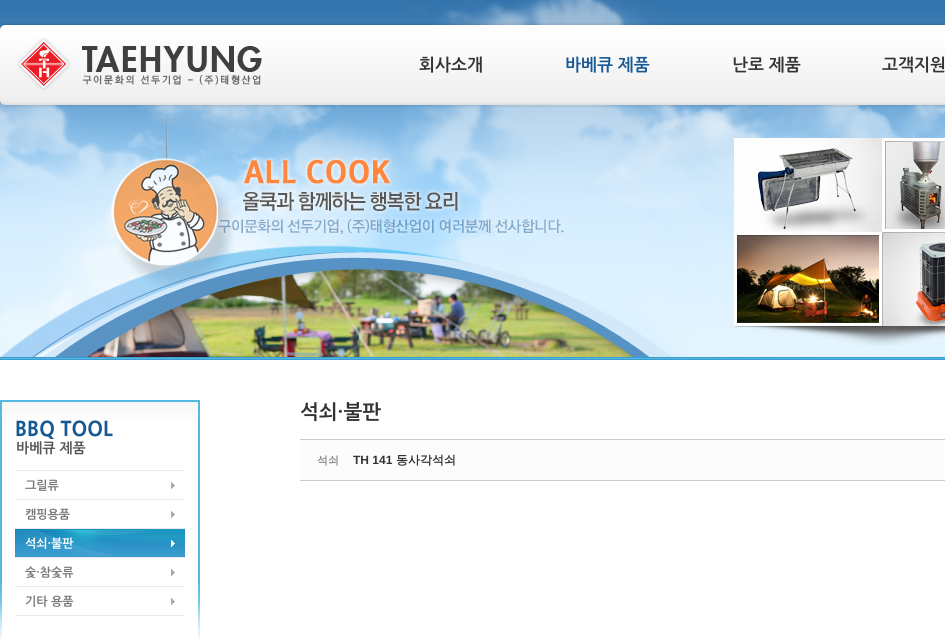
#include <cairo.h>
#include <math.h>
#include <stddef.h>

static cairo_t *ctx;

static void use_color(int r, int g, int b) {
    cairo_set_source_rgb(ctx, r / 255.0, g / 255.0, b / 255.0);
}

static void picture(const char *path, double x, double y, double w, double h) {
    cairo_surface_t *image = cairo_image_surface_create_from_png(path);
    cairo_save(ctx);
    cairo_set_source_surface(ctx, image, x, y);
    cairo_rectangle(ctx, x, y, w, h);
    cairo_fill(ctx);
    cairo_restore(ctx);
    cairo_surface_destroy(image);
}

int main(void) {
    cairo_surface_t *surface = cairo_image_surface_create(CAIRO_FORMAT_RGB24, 945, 639);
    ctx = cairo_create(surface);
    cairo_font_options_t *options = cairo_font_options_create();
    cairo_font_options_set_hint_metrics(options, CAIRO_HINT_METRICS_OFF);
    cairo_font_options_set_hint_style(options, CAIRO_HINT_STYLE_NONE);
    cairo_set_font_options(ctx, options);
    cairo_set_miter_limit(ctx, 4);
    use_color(255, 255, 255);
    cairo_paint(ctx);
    picture("img1.png", 0, 0, 945, 360);
    picture("img2.png", 0, 22, 945, 86);
    picture("img3.png", 17, 38, 245, 52);
    cairo_select_font_face(ctx, "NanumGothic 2", CAIRO_FONT_SLANT_NORMAL, CAIRO_FONT_WEIGHT_BOLD);
    cairo_set_font_size(ctx, 17);
    use_color(51, 51, 51);
    cairo_move_to(ctx, 419, 70);
    cairo_show_text(ctx, "회사소개");
    use_color(23, 89, 146);
    cairo_move_to(ctx, 565, 70);
    cairo_show_text(ctx, "바베큐 제품");
    use_color(51, 51, 51);
    cairo_move_to(ctx, 732, 70);
    cairo_show_text(ctx, "난로 제품");
    cairo_move_to(ctx, 882, 70);
    cairo_show_text(ctx, "고객지원");
    picture("img4.png", 111, 116, 123, 172);
    picture("img5.png", 0, 245, 672, 112);
    picture("img6.png", 734, 138, 148, 208);
    picture("img7.png", 882, 138, 63, 208);
    picture("img8.png", 242, 157, 151, 30);
    picture("img9.png", 242, 189, 219, 25);
    picture("img10.png", 218, 217, 346, 19);
    picture("img11.png", 0, 402, 200, 237);
    use_color(82, 186, 224);
    cairo_rectangle(ctx, 0, 400, 200, 2);
    cairo_fill(ctx);
    cairo_select_font_face(ctx, "NanumGothic ExtraBold", CAIRO_FONT_SLANT_NORMAL, CAIRO_FONT_WEIGHT_NORMAL);
    cairo_set_font_size(ctx, 20);
    use_color(23, 89, 146);
    cairo_move_to(ctx, 15, 435);
    cairo_show_text(ctx, "BBQ TOOL");
    cairo_select_font_face(ctx, "NanumGothic", CAIRO_FONT_SLANT_NORMAL, CAIRO_FONT_WEIGHT_BOLD);
    cairo_set_font_size(ctx, 14);
    use_color(85, 85, 85);
    cairo_move_to(ctx, 16, 453);
    cairo_show_text(ctx, "바베큐 제품");
    use_color(233, 233, 233);
    cairo_rectangle(ctx, 15, 615, 170, 1);
    cairo_fill(ctx);
    picture("img12.png", 171, 482, 4, 7);
    cairo_rectangle(ctx, 15, 470, 170, 1);
    cairo_fill(ctx);
    cairo_select_font_face(ctx, "NanumGothic 2", CAIRO_FONT_SLANT_NORMAL, CAIRO_FONT_WEIGHT_BOLD);
    cairo_set_font_size(ctx, 12);
    use_color(119, 119, 119);
    cairo_move_to(ctx, 25, 489);
    cairo_show_text(ctx, "그릴류");
    picture("img12.png", 171, 511, 4, 7);
    use_color(233, 233, 233);
    cairo_rectangle(ctx, 15, 499, 170, 1);
    cairo_fill(ctx);
    use_color(119, 119, 119);
    cairo_move_to(ctx, 25, 518);
    cairo_show_text(ctx, "캠핑용품");
    picture("img13.png", 15, 529, 170, 28);
    use_color(233, 233, 233);
    cairo_rectangle(ctx, 15, 528, 170, 1);
    cairo_fill(ctx);
    use_color(255, 255, 255);
    cairo_move_to(ctx, 25, 547);
    cairo_show_text(ctx, "석쇠·불판");
    picture("img12.png", 171, 569, 4, 7);
    use_color(233, 233, 233);
    cairo_rectangle(ctx, 15, 557, 170, 1);
    cairo_fill(ctx);
    use_color(119, 119, 119);
    cairo_move_to(ctx, 25, 576);
    cairo_show_text(ctx, "숯·참숯류");
    picture("img12.png", 171, 598, 4, 7);
    use_color(233, 233, 233);
    cairo_rectangle(ctx, 15, 586, 170, 1);
    cairo_fill(ctx);
    use_color(119, 119, 119);
    cairo_move_to(ctx, 25, 605);
    cairo_show_text(ctx, "기타 용품");
    cairo_set_font_size(ctx, 20);
    use_color(51, 51, 51);
    cairo_move_to(ctx, 300, 418);
    cairo_show_text(ctx, "석쇠·불판");
    use_color(252, 252, 252);
    cairo_rectangle(ctx, 300, 440, 645, 40);
    cairo_fill(ctx);
    use_color(204, 204, 204);
    cairo_rectangle(ctx, 300, 439, 645, 1);
    cairo_fill(ctx);
    cairo_rectangle(ctx, 300, 480, 645, 1);
    cairo_fill(ctx);
    cairo_select_font_face(ctx, "WenQuanYi Zen Hei", CAIRO_FONT_SLANT_NORMAL, CAIRO_FONT_WEIGHT_BOLD);
    cairo_set_font_size(ctx, 11);
    use_color(136, 136, 136);
    cairo_move_to(ctx, 317, 464);
    cairo_show_text(ctx, "석쇠");
    cairo_select_font_face(ctx, "Liberation Sans", CAIRO_FONT_SLANT_NORMAL, CAIRO_FONT_WEIGHT_BOLD);
    cairo_set_font_size(ctx, 12);
    use_color(51, 51, 51);
    cairo_move_to(ctx, 353, 464);
    cairo_show_text(ctx, "TH 141");
    cairo_select_font_face(ctx, "WenQuanYi Zen Hei", CAIRO_FONT_SLANT_NORMAL, CAIRO_FONT_WEIGHT_BOLD);
    cairo_move_to(ctx, 396, 464);
    cairo_show_text(ctx, "동사각석쇠");
    cairo_surface_write_to_png(surface, "result.png");
    cairo_font_options_destroy(options);
    cairo_destroy(ctx);
    cairo_surface_destroy(surface);
    return 0;
}
